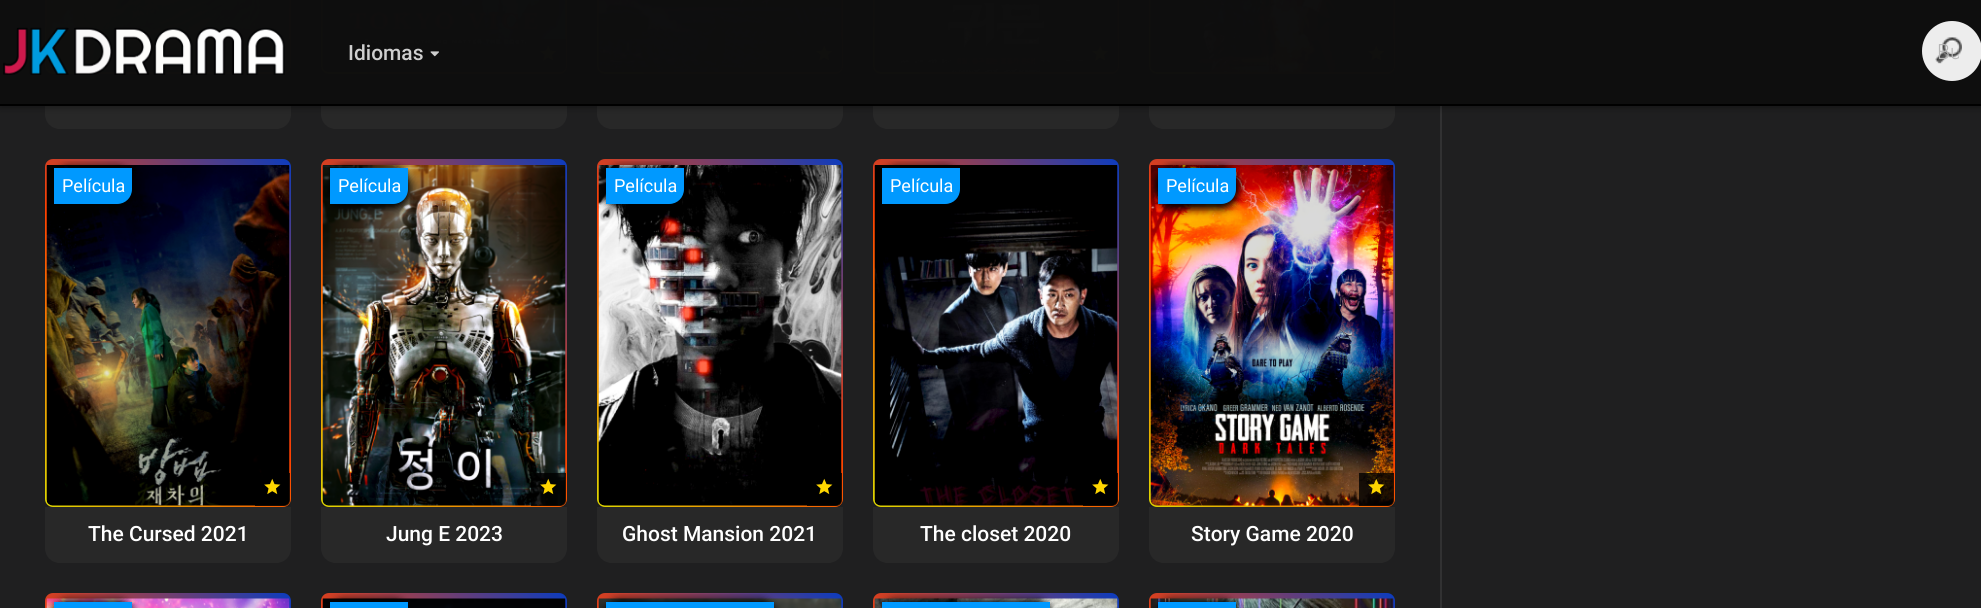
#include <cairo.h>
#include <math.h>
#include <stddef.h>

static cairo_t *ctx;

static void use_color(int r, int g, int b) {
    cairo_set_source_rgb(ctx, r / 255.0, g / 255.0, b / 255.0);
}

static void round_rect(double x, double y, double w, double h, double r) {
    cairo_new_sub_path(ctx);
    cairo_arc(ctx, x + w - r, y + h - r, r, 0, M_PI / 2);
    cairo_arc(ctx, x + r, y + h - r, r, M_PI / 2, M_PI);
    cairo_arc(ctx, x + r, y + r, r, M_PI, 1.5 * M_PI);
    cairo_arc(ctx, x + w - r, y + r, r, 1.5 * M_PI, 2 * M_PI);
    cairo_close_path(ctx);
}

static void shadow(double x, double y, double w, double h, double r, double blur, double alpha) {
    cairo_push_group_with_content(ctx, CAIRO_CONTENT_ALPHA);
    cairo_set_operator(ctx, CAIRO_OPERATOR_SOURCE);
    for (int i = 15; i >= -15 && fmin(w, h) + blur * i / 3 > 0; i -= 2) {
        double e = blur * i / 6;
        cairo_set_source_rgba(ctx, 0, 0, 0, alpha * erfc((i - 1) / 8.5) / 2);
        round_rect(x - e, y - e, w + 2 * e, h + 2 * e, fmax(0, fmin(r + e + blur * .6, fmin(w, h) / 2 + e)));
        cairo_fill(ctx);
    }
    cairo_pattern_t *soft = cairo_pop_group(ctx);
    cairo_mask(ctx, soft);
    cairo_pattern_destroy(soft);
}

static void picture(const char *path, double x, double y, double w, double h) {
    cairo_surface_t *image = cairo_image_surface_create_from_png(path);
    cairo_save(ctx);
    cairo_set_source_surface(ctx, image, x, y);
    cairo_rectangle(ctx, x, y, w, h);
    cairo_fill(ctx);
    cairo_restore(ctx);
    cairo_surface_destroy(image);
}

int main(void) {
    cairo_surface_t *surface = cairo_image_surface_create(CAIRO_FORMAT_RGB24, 1981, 608);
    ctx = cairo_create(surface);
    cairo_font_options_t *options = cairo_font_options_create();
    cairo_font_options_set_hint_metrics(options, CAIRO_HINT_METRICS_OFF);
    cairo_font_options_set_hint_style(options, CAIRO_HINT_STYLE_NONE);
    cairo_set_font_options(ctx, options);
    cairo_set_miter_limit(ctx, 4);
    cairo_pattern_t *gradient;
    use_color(31, 31, 32);
    cairo_paint(ctx);
    use_color(49, 49, 50);
    cairo_rectangle(ctx, 1440, 0, 2, 608);
    cairo_fill(ctx);
    gradient = cairo_pattern_create_linear(316, -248, 20, 48);
    cairo_pattern_add_color_stop_rgba(gradient, 0, 0.043, 0.235, 0.749, 1);
    cairo_pattern_add_color_stop_rgba(gradient, 0.5, 1, 0.251, 0, 1);
    cairo_pattern_add_color_stop_rgba(gradient, 1, 0.871, 0.843, 0, 1);
    cairo_set_source(ctx, gradient);
    cairo_pattern_destroy(gradient);
    round_rect(45, -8, 246, 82, 8);
    cairo_fill(ctx);
    picture("img4.png", 46, 0, 244, 72);
    cairo_set_source_rgba(ctx, 0, 0, 0, 0.8);
    cairo_new_path(ctx);
    cairo_move_to(ctx, 255, 39);
    cairo_line_to(ctx, 290, 39);
    cairo_line_to(ctx, 290, 66);
    cairo_curve_to(ctx, 290, 69.5, 287.5, 72, 284, 72);
    cairo_line_to(ctx, 255, 72);
    cairo_close_path(ctx);
    cairo_fill(ctx);
    picture("img5.png", 264, 45, 12, 11);
    use_color(40, 40, 40);
    cairo_new_path(ctx);
    cairo_move_to(ctx, 45, 74);
    cairo_line_to(ctx, 291, 74);
    cairo_line_to(ctx, 291, 114);
    cairo_curve_to(ctx, 291, 122.5, 284.5, 129, 276, 129);
    cairo_line_to(ctx, 60, 129);
    cairo_curve_to(ctx, 51.5, 129, 45, 122.5, 45, 114);
    cairo_close_path(ctx);
    cairo_fill(ctx);
    gradient = cairo_pattern_create_linear(592, -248, 296, 48);
    cairo_pattern_add_color_stop_rgba(gradient, 0, 0.043, 0.235, 0.749, 1);
    cairo_pattern_add_color_stop_rgba(gradient, 0.5, 1, 0.251, 0, 1);
    cairo_pattern_add_color_stop_rgba(gradient, 1, 0.871, 0.843, 0, 1);
    cairo_set_source(ctx, gradient);
    cairo_pattern_destroy(gradient);
    round_rect(321, -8, 246, 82, 8);
    cairo_fill(ctx);
    picture("img6.png", 322, 0, 244, 72);
    cairo_set_source_rgba(ctx, 0, 0, 0, 0.8);
    cairo_new_path(ctx);
    cairo_move_to(ctx, 531, 39);
    cairo_line_to(ctx, 566, 39);
    cairo_line_to(ctx, 566, 66);
    cairo_curve_to(ctx, 566, 69.5, 563.5, 72, 560, 72);
    cairo_line_to(ctx, 531, 72);
    cairo_close_path(ctx);
    cairo_fill(ctx);
    picture("img7.png", 540, 45, 17, 16);
    use_color(40, 40, 40);
    cairo_new_path(ctx);
    cairo_move_to(ctx, 321, 74);
    cairo_line_to(ctx, 567, 74);
    cairo_line_to(ctx, 567, 114);
    cairo_curve_to(ctx, 567, 122.5, 560.5, 129, 552, 129);
    cairo_line_to(ctx, 336, 129);
    cairo_curve_to(ctx, 327.5, 129, 321, 122.5, 321, 114);
    cairo_close_path(ctx);
    cairo_fill(ctx);
    gradient = cairo_pattern_create_linear(868, -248, 572, 48);
    cairo_pattern_add_color_stop_rgba(gradient, 0, 0.043, 0.235, 0.749, 1);
    cairo_pattern_add_color_stop_rgba(gradient, 0.5, 1, 0.251, 0, 1);
    cairo_pattern_add_color_stop_rgba(gradient, 1, 0.871, 0.843, 0, 1);
    cairo_set_source(ctx, gradient);
    cairo_pattern_destroy(gradient);
    round_rect(597, -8, 246, 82, 8);
    cairo_fill(ctx);
    picture("img8.png", 598, 0, 244, 72);
    cairo_set_source_rgba(ctx, 0, 0, 0, 0.8);
    cairo_new_path(ctx);
    cairo_move_to(ctx, 807, 39);
    cairo_line_to(ctx, 842, 39);
    cairo_line_to(ctx, 842, 66);
    cairo_curve_to(ctx, 842, 69.5, 839.5, 72, 836, 72);
    cairo_line_to(ctx, 807, 72);
    cairo_close_path(ctx);
    cairo_fill(ctx);
    picture("img9.png", 816, 45, 17, 16);
    use_color(40, 40, 40);
    cairo_new_path(ctx);
    cairo_move_to(ctx, 597, 74);
    cairo_line_to(ctx, 843, 74);
    cairo_line_to(ctx, 843, 114);
    cairo_curve_to(ctx, 843, 122.5, 836.5, 129, 828, 129);
    cairo_line_to(ctx, 612, 129);
    cairo_curve_to(ctx, 603.5, 129, 597, 122.5, 597, 114);
    cairo_close_path(ctx);
    cairo_fill(ctx);
    gradient = cairo_pattern_create_linear(1144, -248, 848, 48);
    cairo_pattern_add_color_stop_rgba(gradient, 0, 0.043, 0.235, 0.749, 1);
    cairo_pattern_add_color_stop_rgba(gradient, 0.5, 1, 0.251, 0, 1);
    cairo_pattern_add_color_stop_rgba(gradient, 1, 0.871, 0.843, 0, 1);
    cairo_set_source(ctx, gradient);
    cairo_pattern_destroy(gradient);
    round_rect(873, -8, 246, 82, 8);
    cairo_fill(ctx);
    picture("img10.png", 874, 0, 244, 72);
    cairo_set_source_rgba(ctx, 0, 0, 0, 0.8);
    cairo_new_path(ctx);
    cairo_move_to(ctx, 1083, 39);
    cairo_line_to(ctx, 1118, 39);
    cairo_line_to(ctx, 1118, 66);
    cairo_curve_to(ctx, 1118, 69.5, 1115.5, 72, 1112, 72);
    cairo_line_to(ctx, 1083, 72);
    cairo_close_path(ctx);
    cairo_fill(ctx);
    picture("img11.png", 1092, 45, 17, 16);
    use_color(40, 40, 40);
    cairo_new_path(ctx);
    cairo_move_to(ctx, 873, 74);
    cairo_line_to(ctx, 1119, 74);
    cairo_line_to(ctx, 1119, 114);
    cairo_curve_to(ctx, 1119, 122.5, 1112.5, 129, 1104, 129);
    cairo_line_to(ctx, 888, 129);
    cairo_curve_to(ctx, 879.5, 129, 873, 122.5, 873, 114);
    cairo_close_path(ctx);
    cairo_fill(ctx);
    gradient = cairo_pattern_create_linear(1420, -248, 1124, 48);
    cairo_pattern_add_color_stop_rgba(gradient, 0, 0.043, 0.235, 0.749, 1);
    cairo_pattern_add_color_stop_rgba(gradient, 0.5, 1, 0.251, 0, 1);
    cairo_pattern_add_color_stop_rgba(gradient, 1, 0.871, 0.843, 0, 1);
    cairo_set_source(ctx, gradient);
    cairo_pattern_destroy(gradient);
    round_rect(1149, -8, 246, 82, 8);
    cairo_fill(ctx);
    picture("img12.png", 1150, 0, 244, 72);
    cairo_set_source_rgba(ctx, 0, 0, 0, 0.8);
    cairo_new_path(ctx);
    cairo_move_to(ctx, 1359, 39);
    cairo_line_to(ctx, 1394, 39);
    cairo_line_to(ctx, 1394, 66);
    cairo_curve_to(ctx, 1394, 69.5, 1391.5, 72, 1388, 72);
    cairo_line_to(ctx, 1359, 72);
    cairo_close_path(ctx);
    cairo_fill(ctx);
    picture("img13.png", 1368, 45, 17, 16);
    use_color(40, 40, 40);
    cairo_new_path(ctx);
    cairo_move_to(ctx, 1149, 74);
    cairo_line_to(ctx, 1395, 74);
    cairo_line_to(ctx, 1395, 114);
    cairo_curve_to(ctx, 1395, 122.5, 1388.5, 129, 1380, 129);
    cairo_line_to(ctx, 1164, 129);
    cairo_curve_to(ctx, 1155.5, 129, 1149, 122.5, 1149, 114);
    cairo_close_path(ctx);
    cairo_fill(ctx);
    cairo_save(ctx);
    cairo_rectangle(ctx, 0, 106, 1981, 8);
    cairo_clip(ctx);
    use_color(0, 0, 0);
    shadow(0, 2, 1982, 105, 0, 4, 0.4);
    cairo_restore(ctx);
    cairo_set_source_rgba(ctx, 0.059, 0.059, 0.059, 0.99);
    cairo_rectangle(ctx, 0, 0, 1981, 104);
    cairo_fill(ctx);
    use_color(0, 0, 0);
    cairo_rectangle(ctx, 0, 104, 1981, 2);
    cairo_fill(ctx);
    picture("img1.png", 3, 27, 282, 48);
    cairo_select_font_face(ctx, "Roboto Medium", CAIRO_FONT_SLANT_NORMAL, CAIRO_FONT_WEIGHT_NORMAL);
    cairo_set_font_size(ctx, 21);
    use_color(207, 207, 207);
    cairo_move_to(ctx, 348, 60);
    cairo_show_text(ctx, "Idiomas");
    picture("img2.png", 430, 51, 9, 6);
    use_color(237, 237, 237);
    cairo_arc(ctx, 1952, 51, 30, 0, 2 * M_PI);
    cairo_fill(ctx);
    picture("img3.png", 1935, 37, 27, 27);
    cairo_save(ctx);
    cairo_rectangle(ctx, 1937, 39, 22, 24);
    cairo_clip(ctx);
    cairo_select_font_face(ctx, "Roboto Light", CAIRO_FONT_SLANT_NORMAL, CAIRO_FONT_WEIGHT_NORMAL);
    use_color(182, 182, 182);
    cairo_move_to(ctx, 1937, 59);
    cairo_show_text(ctx, "Bu");
    cairo_restore(ctx);
    gradient = cairo_pattern_create_linear(317, 184, 20, 482);
    cairo_pattern_add_color_stop_rgba(gradient, 0, 0.043, 0.235, 0.749, 1);
    cairo_pattern_add_color_stop_rgba(gradient, 0.5, 1, 0.251, 0, 1);
    cairo_pattern_add_color_stop_rgba(gradient, 1, 0.871, 0.843, 0, 1);
    cairo_set_source(ctx, gradient);
    cairo_pattern_destroy(gradient);
    round_rect(45, 159, 246, 348, 8);
    cairo_fill(ctx);
    picture("img14.png", 46, 165, 244, 341);
    cairo_save(ctx);
    round_rect(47, 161, 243, 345, 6);
    cairo_clip(ctx);
    use_color(0, 0, 0);
    shadow(51, 167, 84, 42, 18, 4, 1);
    cairo_restore(ctx);
    use_color(0, 153, 255);
    cairo_new_path(ctx);
    cairo_move_to(ctx, 54, 168);
    cairo_line_to(ctx, 132, 168);
    cairo_line_to(ctx, 132, 189);
    cairo_curve_to(ctx, 132, 197.5, 125.5, 204, 117, 204);
    cairo_line_to(ctx, 54, 204);
    cairo_close_path(ctx);
    cairo_fill(ctx);
    cairo_select_font_face(ctx, "Roboto", CAIRO_FONT_SLANT_NORMAL, CAIRO_FONT_WEIGHT_NORMAL);
    cairo_set_font_size(ctx, 18);
    use_color(255, 255, 255);
    cairo_move_to(ctx, 62, 192);
    cairo_show_text(ctx, "Película");
    cairo_set_source_rgba(ctx, 0, 0, 0, 0.8);
    cairo_new_path(ctx);
    cairo_move_to(ctx, 255, 473);
    cairo_line_to(ctx, 290, 473);
    cairo_line_to(ctx, 290, 500);
    cairo_curve_to(ctx, 290, 503.5, 287.5, 506, 284, 506);
    cairo_line_to(ctx, 255, 506);
    cairo_close_path(ctx);
    cairo_fill(ctx);
    picture("img15.png", 264, 478, 17, 17);
    use_color(40, 40, 40);
    cairo_new_path(ctx);
    cairo_move_to(ctx, 45, 507);
    cairo_line_to(ctx, 291, 507);
    cairo_line_to(ctx, 291, 548);
    cairo_curve_to(ctx, 291, 556.5, 284.5, 563, 276, 563);
    cairo_line_to(ctx, 60, 563);
    cairo_curve_to(ctx, 51.5, 563, 45, 556.5, 45, 548);
    cairo_close_path(ctx);
    cairo_fill(ctx);
    cairo_select_font_face(ctx, "Roboto Medium", CAIRO_FONT_SLANT_NORMAL, CAIRO_FONT_WEIGHT_NORMAL);
    cairo_set_font_size(ctx, 21);
    use_color(255, 255, 255);
    cairo_move_to(ctx, 88, 541);
    cairo_show_text(ctx, "The Cursed 2021");
    gradient = cairo_pattern_create_linear(593, 184, 296, 482);
    cairo_pattern_add_color_stop_rgba(gradient, 0, 0.043, 0.235, 0.749, 1);
    cairo_pattern_add_color_stop_rgba(gradient, 0.5, 1, 0.251, 0, 1);
    cairo_pattern_add_color_stop_rgba(gradient, 1, 0.871, 0.843, 0, 1);
    cairo_set_source(ctx, gradient);
    cairo_pattern_destroy(gradient);
    round_rect(321, 159, 246, 348, 8);
    cairo_fill(ctx);
    picture("img16.png", 322, 165, 244, 341);
    cairo_save(ctx);
    round_rect(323, 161, 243, 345, 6);
    cairo_clip(ctx);
    use_color(0, 0, 0);
    shadow(327, 167, 84, 42, 18, 4, 1);
    cairo_restore(ctx);
    use_color(0, 153, 255);
    cairo_new_path(ctx);
    cairo_move_to(ctx, 330, 168);
    cairo_line_to(ctx, 408, 168);
    cairo_line_to(ctx, 408, 189);
    cairo_curve_to(ctx, 408, 197.5, 401.5, 204, 393, 204);
    cairo_line_to(ctx, 330, 204);
    cairo_close_path(ctx);
    cairo_fill(ctx);
    cairo_select_font_face(ctx, "Roboto", CAIRO_FONT_SLANT_NORMAL, CAIRO_FONT_WEIGHT_NORMAL);
    cairo_set_font_size(ctx, 18);
    use_color(255, 255, 255);
    cairo_move_to(ctx, 338, 192);
    cairo_show_text(ctx, "Película");
    cairo_set_source_rgba(ctx, 0, 0, 0, 0.8);
    cairo_new_path(ctx);
    cairo_move_to(ctx, 531, 473);
    cairo_line_to(ctx, 566, 473);
    cairo_line_to(ctx, 566, 500);
    cairo_curve_to(ctx, 566, 503.5, 563.5, 506, 560, 506);
    cairo_line_to(ctx, 531, 506);
    cairo_close_path(ctx);
    cairo_fill(ctx);
    picture("img17.png", 540, 478, 17, 17);
    use_color(40, 40, 40);
    cairo_new_path(ctx);
    cairo_move_to(ctx, 321, 507);
    cairo_line_to(ctx, 567, 507);
    cairo_line_to(ctx, 567, 548);
    cairo_curve_to(ctx, 567, 556.5, 560.5, 563, 552, 563);
    cairo_line_to(ctx, 336, 563);
    cairo_curve_to(ctx, 327.5, 563, 321, 556.5, 321, 548);
    cairo_close_path(ctx);
    cairo_fill(ctx);
    cairo_select_font_face(ctx, "Roboto Medium", CAIRO_FONT_SLANT_NORMAL, CAIRO_FONT_WEIGHT_NORMAL);
    cairo_set_font_size(ctx, 21);
    use_color(255, 255, 255);
    cairo_move_to(ctx, 386, 541);
    cairo_show_text(ctx, "Jung E 2023");
    gradient = cairo_pattern_create_linear(869, 184, 572, 482);
    cairo_pattern_add_color_stop_rgba(gradient, 0, 0.043, 0.235, 0.749, 1);
    cairo_pattern_add_color_stop_rgba(gradient, 0.5, 1, 0.251, 0, 1);
    cairo_pattern_add_color_stop_rgba(gradient, 1, 0.871, 0.843, 0, 1);
    cairo_set_source(ctx, gradient);
    cairo_pattern_destroy(gradient);
    round_rect(597, 159, 246, 348, 8);
    cairo_fill(ctx);
    picture("img18.png", 598, 165, 244, 341);
    cairo_save(ctx);
    round_rect(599, 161, 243, 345, 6);
    cairo_clip(ctx);
    use_color(0, 0, 0);
    shadow(603, 167, 84, 42, 18, 4, 1);
    cairo_restore(ctx);
    use_color(0, 153, 255);
    cairo_new_path(ctx);
    cairo_move_to(ctx, 606, 168);
    cairo_line_to(ctx, 684, 168);
    cairo_line_to(ctx, 684, 189);
    cairo_curve_to(ctx, 684, 197.5, 677.5, 204, 669, 204);
    cairo_line_to(ctx, 606, 204);
    cairo_close_path(ctx);
    cairo_fill(ctx);
    cairo_select_font_face(ctx, "Roboto", CAIRO_FONT_SLANT_NORMAL, CAIRO_FONT_WEIGHT_NORMAL);
    cairo_set_font_size(ctx, 18);
    use_color(255, 255, 255);
    cairo_move_to(ctx, 614, 192);
    cairo_show_text(ctx, "Película");
    cairo_set_source_rgba(ctx, 0, 0, 0, 0.8);
    cairo_new_path(ctx);
    cairo_move_to(ctx, 807, 473);
    cairo_line_to(ctx, 842, 473);
    cairo_line_to(ctx, 842, 500);
    cairo_curve_to(ctx, 842, 503.5, 839.5, 506, 836, 506);
    cairo_line_to(ctx, 807, 506);
    cairo_close_path(ctx);
    cairo_fill(ctx);
    picture("img15.png", 816, 478, 17, 17);
    use_color(40, 40, 40);
    cairo_new_path(ctx);
    cairo_move_to(ctx, 597, 507);
    cairo_line_to(ctx, 843, 507);
    cairo_line_to(ctx, 843, 548);
    cairo_curve_to(ctx, 843, 556.5, 836.5, 563, 828, 563);
    cairo_line_to(ctx, 612, 563);
    cairo_curve_to(ctx, 603.5, 563, 597, 556.5, 597, 548);
    cairo_close_path(ctx);
    cairo_fill(ctx);
    cairo_select_font_face(ctx, "Roboto Medium", CAIRO_FONT_SLANT_NORMAL, CAIRO_FONT_WEIGHT_NORMAL);
    cairo_set_font_size(ctx, 21);
    use_color(255, 255, 255);
    cairo_move_to(ctx, 622, 541);
    cairo_show_text(ctx, "Ghost Mansion 2021");
    gradient = cairo_pattern_create_linear(1145, 184, 848, 482);
    cairo_pattern_add_color_stop_rgba(gradient, 0, 0.043, 0.235, 0.749, 1);
    cairo_pattern_add_color_stop_rgba(gradient, 0.5, 1, 0.251, 0, 1);
    cairo_pattern_add_color_stop_rgba(gradient, 1, 0.871, 0.843, 0, 1);
    cairo_set_source(ctx, gradient);
    cairo_pattern_destroy(gradient);
    round_rect(873, 159, 246, 348, 8);
    cairo_fill(ctx);
    picture("img19.png", 874, 165, 244, 341);
    cairo_save(ctx);
    round_rect(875, 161, 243, 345, 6);
    cairo_clip(ctx);
    use_color(0, 0, 0);
    shadow(879, 167, 84, 42, 18, 4, 1);
    cairo_restore(ctx);
    use_color(0, 153, 255);
    cairo_new_path(ctx);
    cairo_move_to(ctx, 882, 168);
    cairo_line_to(ctx, 960, 168);
    cairo_line_to(ctx, 960, 189);
    cairo_curve_to(ctx, 960, 197.5, 953.5, 204, 945, 204);
    cairo_line_to(ctx, 882, 204);
    cairo_close_path(ctx);
    cairo_fill(ctx);
    cairo_select_font_face(ctx, "Roboto", CAIRO_FONT_SLANT_NORMAL, CAIRO_FONT_WEIGHT_NORMAL);
    cairo_set_font_size(ctx, 18);
    use_color(255, 255, 255);
    cairo_move_to(ctx, 890, 192);
    cairo_show_text(ctx, "Película");
    cairo_set_source_rgba(ctx, 0, 0, 0, 0.8);
    cairo_new_path(ctx);
    cairo_move_to(ctx, 1083, 473);
    cairo_line_to(ctx, 1118, 473);
    cairo_line_to(ctx, 1118, 500);
    cairo_curve_to(ctx, 1118, 503.5, 1115.5, 506, 1112, 506);
    cairo_line_to(ctx, 1083, 506);
    cairo_close_path(ctx);
    cairo_fill(ctx);
    picture("img15.png", 1092, 478, 17, 17);
    use_color(40, 40, 40);
    cairo_new_path(ctx);
    cairo_move_to(ctx, 873, 507);
    cairo_line_to(ctx, 1119, 507);
    cairo_line_to(ctx, 1119, 548);
    cairo_curve_to(ctx, 1119, 556.5, 1112.5, 563, 1104, 563);
    cairo_line_to(ctx, 888, 563);
    cairo_curve_to(ctx, 879.5, 563, 873, 556.5, 873, 548);
    cairo_close_path(ctx);
    cairo_fill(ctx);
    cairo_select_font_face(ctx, "Roboto Medium", CAIRO_FONT_SLANT_NORMAL, CAIRO_FONT_WEIGHT_NORMAL);
    cairo_set_font_size(ctx, 21);
    use_color(255, 255, 255);
    cairo_move_to(ctx, 920, 541);
    cairo_show_text(ctx, "The closet 2020");
    gradient = cairo_pattern_create_linear(1421, 184, 1124, 482);
    cairo_pattern_add_color_stop_rgba(gradient, 0, 0.043, 0.235, 0.749, 1);
    cairo_pattern_add_color_stop_rgba(gradient, 0.5, 1, 0.251, 0, 1);
    cairo_pattern_add_color_stop_rgba(gradient, 1, 0.871, 0.843, 0, 1);
    cairo_set_source(ctx, gradient);
    cairo_pattern_destroy(gradient);
    round_rect(1149, 159, 246, 348, 8);
    cairo_fill(ctx);
    picture("img20.png", 1150, 165, 244, 341);
    cairo_save(ctx);
    round_rect(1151, 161, 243, 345, 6);
    cairo_clip(ctx);
    use_color(0, 0, 0);
    shadow(1155, 167, 84, 42, 18, 4, 1);
    cairo_restore(ctx);
    use_color(0, 153, 255);
    cairo_new_path(ctx);
    cairo_move_to(ctx, 1158, 168);
    cairo_line_to(ctx, 1236, 168);
    cairo_line_to(ctx, 1236, 189);
    cairo_curve_to(ctx, 1236, 197.5, 1229.5, 204, 1221, 204);
    cairo_line_to(ctx, 1158, 204);
    cairo_close_path(ctx);
    cairo_fill(ctx);
    cairo_select_font_face(ctx, "Roboto", CAIRO_FONT_SLANT_NORMAL, CAIRO_FONT_WEIGHT_NORMAL);
    cairo_set_font_size(ctx, 18);
    use_color(255, 255, 255);
    cairo_move_to(ctx, 1166, 192);
    cairo_show_text(ctx, "Película");
    cairo_set_source_rgba(ctx, 0, 0, 0, 0.8);
    cairo_new_path(ctx);
    cairo_move_to(ctx, 1359, 473);
    cairo_line_to(ctx, 1394, 473);
    cairo_line_to(ctx, 1394, 500);
    cairo_curve_to(ctx, 1394, 503.5, 1391.5, 506, 1388, 506);
    cairo_line_to(ctx, 1359, 506);
    cairo_close_path(ctx);
    cairo_fill(ctx);
    picture("img21.png", 1368, 478, 17, 17);
    use_color(40, 40, 40);
    cairo_new_path(ctx);
    cairo_move_to(ctx, 1149, 507);
    cairo_line_to(ctx, 1395, 507);
    cairo_line_to(ctx, 1395, 548);
    cairo_curve_to(ctx, 1395, 556.5, 1388.5, 563, 1380, 563);
    cairo_line_to(ctx, 1164, 563);
    cairo_curve_to(ctx, 1155.5, 563, 1149, 556.5, 1149, 548);
    cairo_close_path(ctx);
    cairo_fill(ctx);
    cairo_select_font_face(ctx, "Roboto Medium", CAIRO_FONT_SLANT_NORMAL, CAIRO_FONT_WEIGHT_NORMAL);
    cairo_set_font_size(ctx, 21);
    use_color(255, 255, 255);
    cairo_move_to(ctx, 1191, 541);
    cairo_show_text(ctx, "Story Game 2020");
    gradient = cairo_pattern_create_linear(316, 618, 20, 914);
    cairo_pattern_add_color_stop_rgba(gradient, 0, 0.043, 0.235, 0.749, 1);
    cairo_pattern_add_color_stop_rgba(gradient, 0.5, 1, 0.251, 0, 1);
    cairo_pattern_add_color_stop_rgba(gradient, 1, 0.871, 0.843, 0, 1);
    cairo_set_source(ctx, gradient);
    cairo_pattern_destroy(gradient);
    round_rect(45, 593, 246, 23, 8);
    cairo_fill(ctx);
    picture("img22.png", 46, 598, 244, 10);
    cairo_save(ctx);
    round_rect(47, 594, 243, 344, 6);
    cairo_clip(ctx);
    use_color(0, 0, 0);
    shadow(51, 600, 84, 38, 18, 4, 1);
    cairo_restore(ctx);
    use_color(0, 153, 255);
    cairo_rectangle(ctx, 54, 602, 78, 6);
    cairo_fill(ctx);
    gradient = cairo_pattern_create_linear(592, 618, 296, 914);
    cairo_pattern_add_color_stop_rgba(gradient, 0, 0.043, 0.235, 0.749, 1);
    cairo_pattern_add_color_stop_rgba(gradient, 0.5, 1, 0.251, 0, 1);
    cairo_pattern_add_color_stop_rgba(gradient, 1, 0.871, 0.843, 0, 1);
    cairo_set_source(ctx, gradient);
    cairo_pattern_destroy(gradient);
    round_rect(321, 593, 246, 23, 8);
    cairo_fill(ctx);
    picture("img23.png", 322, 598, 244, 10);
    cairo_save(ctx);
    round_rect(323, 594, 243, 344, 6);
    cairo_clip(ctx);
    use_color(0, 0, 0);
    shadow(327, 600, 84, 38, 18, 4, 1);
    cairo_restore(ctx);
    use_color(0, 153, 255);
    cairo_rectangle(ctx, 330, 602, 78, 6);
    cairo_fill(ctx);
    gradient = cairo_pattern_create_linear(868, 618, 572, 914);
    cairo_pattern_add_color_stop_rgba(gradient, 0, 0.043, 0.235, 0.749, 1);
    cairo_pattern_add_color_stop_rgba(gradient, 0.5, 1, 0.251, 0, 1);
    cairo_pattern_add_color_stop_rgba(gradient, 1, 0.871, 0.843, 0, 1);
    cairo_set_source(ctx, gradient);
    cairo_pattern_destroy(gradient);
    round_rect(597, 593, 246, 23, 8);
    cairo_fill(ctx);
    picture("img24.png", 598, 598, 244, 10);
    cairo_save(ctx);
    round_rect(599, 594, 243, 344, 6);
    cairo_clip(ctx);
    use_color(0, 0, 0);
    shadow(603, 600, 174, 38, 18, 4, 1);
    cairo_restore(ctx);
    use_color(0, 153, 255);
    cairo_rectangle(ctx, 606, 602, 168, 6);
    cairo_fill(ctx);
    gradient = cairo_pattern_create_linear(1144, 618, 848, 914);
    cairo_pattern_add_color_stop_rgba(gradient, 0, 0.043, 0.235, 0.749, 1);
    cairo_pattern_add_color_stop_rgba(gradient, 0.5, 1, 0.251, 0, 1);
    cairo_pattern_add_color_stop_rgba(gradient, 1, 0.871, 0.843, 0, 1);
    cairo_set_source(ctx, gradient);
    cairo_pattern_destroy(gradient);
    round_rect(873, 593, 246, 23, 8);
    cairo_fill(ctx);
    picture("img25.png", 874, 598, 244, 10);
    cairo_save(ctx);
    round_rect(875, 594, 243, 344, 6);
    cairo_clip(ctx);
    use_color(0, 0, 0);
    shadow(879, 600, 174, 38, 18, 4, 1);
    cairo_restore(ctx);
    use_color(0, 153, 255);
    cairo_rectangle(ctx, 882, 602, 168, 6);
    cairo_fill(ctx);
    gradient = cairo_pattern_create_linear(1420, 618, 1124, 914);
    cairo_pattern_add_color_stop_rgba(gradient, 0, 0.043, 0.235, 0.749, 1);
    cairo_pattern_add_color_stop_rgba(gradient, 0.5, 1, 0.251, 0, 1);
    cairo_pattern_add_color_stop_rgba(gradient, 1, 0.871, 0.843, 0, 1);
    cairo_set_source(ctx, gradient);
    cairo_pattern_destroy(gradient);
    round_rect(1149, 593, 246, 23, 8);
    cairo_fill(ctx);
    picture("img26.png", 1150, 598, 244, 10);
    cairo_save(ctx);
    round_rect(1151, 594, 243, 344, 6);
    cairo_clip(ctx);
    use_color(0, 0, 0);
    shadow(1155, 600, 84, 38, 18, 4, 1);
    cairo_restore(ctx);
    use_color(0, 153, 255);
    cairo_rectangle(ctx, 1158, 602, 78, 6);
    cairo_fill(ctx);
    cairo_surface_write_to_png(surface, "result.png");
    cairo_font_options_destroy(options);
    cairo_destroy(ctx);
    cairo_surface_destroy(surface);
    return 0;
}
